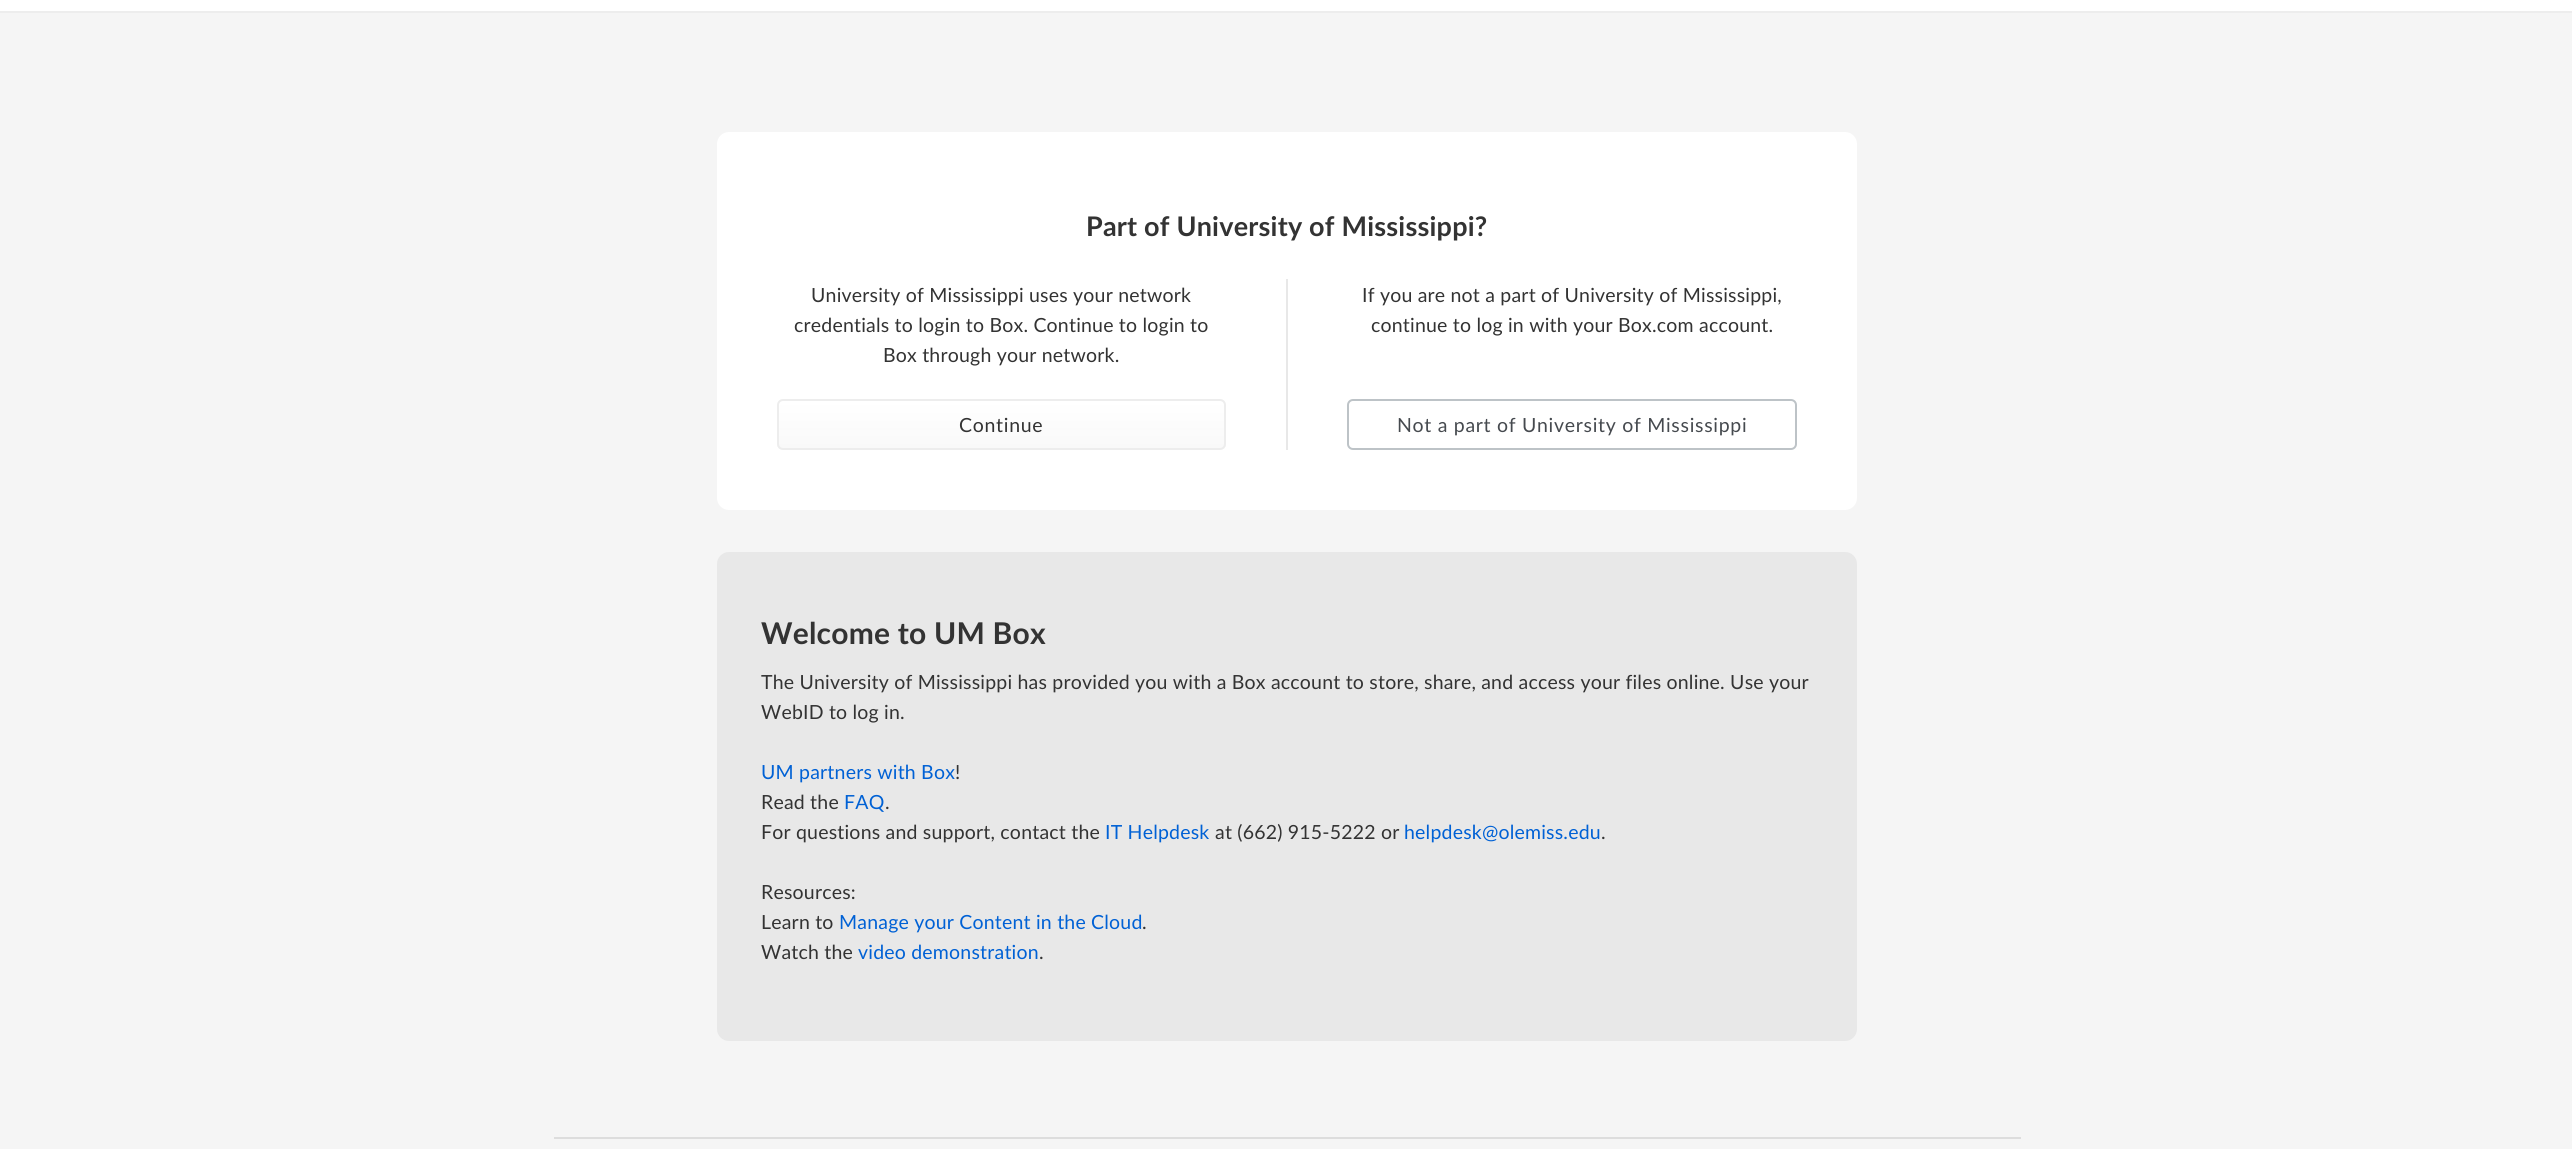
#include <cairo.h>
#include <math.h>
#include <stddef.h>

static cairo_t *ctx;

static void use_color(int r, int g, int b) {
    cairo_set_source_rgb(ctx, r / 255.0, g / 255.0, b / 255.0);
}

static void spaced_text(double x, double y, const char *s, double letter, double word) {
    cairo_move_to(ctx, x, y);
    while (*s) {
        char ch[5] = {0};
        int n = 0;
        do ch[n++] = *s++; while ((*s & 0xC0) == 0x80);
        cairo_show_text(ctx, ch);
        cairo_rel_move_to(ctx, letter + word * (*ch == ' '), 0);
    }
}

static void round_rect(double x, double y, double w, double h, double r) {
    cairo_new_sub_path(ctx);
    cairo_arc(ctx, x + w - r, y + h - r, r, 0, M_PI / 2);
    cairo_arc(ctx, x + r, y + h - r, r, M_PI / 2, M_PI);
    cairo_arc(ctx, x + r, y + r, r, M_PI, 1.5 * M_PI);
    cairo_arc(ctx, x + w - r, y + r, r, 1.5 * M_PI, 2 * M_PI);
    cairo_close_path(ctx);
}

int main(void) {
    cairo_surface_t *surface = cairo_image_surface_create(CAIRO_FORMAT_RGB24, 2572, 1149);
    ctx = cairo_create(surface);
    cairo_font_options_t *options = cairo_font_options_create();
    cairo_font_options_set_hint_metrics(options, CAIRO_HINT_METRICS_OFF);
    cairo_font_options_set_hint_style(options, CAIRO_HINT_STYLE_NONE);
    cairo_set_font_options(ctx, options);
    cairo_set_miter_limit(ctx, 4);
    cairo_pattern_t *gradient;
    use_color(245, 245, 245);
    cairo_paint(ctx);
    use_color(255, 255, 255);
    cairo_rectangle(ctx, 0, 0, 2572, 11);
    cairo_fill(ctx);
    use_color(237, 237, 237);
    cairo_rectangle(ctx, 0, 11, 2572, 2);
    cairo_fill(ctx);
    use_color(255, 255, 255);
    round_rect(717, 132, 1140, 378, 12);
    cairo_fill(ctx);
    cairo_select_font_face(ctx, "Lato", CAIRO_FONT_SLANT_NORMAL, CAIRO_FONT_WEIGHT_BOLD);
    cairo_set_font_size(ctx, 27);
    use_color(51, 51, 51);
    spaced_text(1086, 236, "Part of University of Mississippi?", 0.2, 0);
    cairo_select_font_face(ctx, "Lato", CAIRO_FONT_SLANT_NORMAL, CAIRO_FONT_WEIGHT_NORMAL);
    cairo_set_font_size(ctx, 19.5);
    spaced_text(811, 302, "University of Mississippi uses your network", 0.2, 0);
    spaced_text(794, 332, "credentials to login to Box. Continue to login to", 0.2, 0);
    spaced_text(883, 362, "Box through your network.", 0.2, 0);
    cairo_save(ctx);
    round_rect(777, 399, 449, 51, 6);
    cairo_clip(ctx);
    gradient = cairo_pattern_create_linear(1001, 401, 1001, 449);
    cairo_pattern_add_color_stop_rgba(gradient, 0, 1, 1, 1, 1);
    cairo_pattern_add_color_stop_rgba(gradient, 1, 0.976, 0.976, 0.976, 1);
    cairo_set_source(ctx, gradient);
    cairo_pattern_destroy(gradient);
    cairo_rectangle(ctx, 777, 401, 449, 48);
    cairo_fill(ctx);
    cairo_restore(ctx);
    round_rect(778, 400, 447, 49, 5);
    use_color(237, 237, 237);
    cairo_stroke(ctx);
    use_color(51, 51, 51);
    spaced_text(959, 432, "Continue", 0.7, 0);
    use_color(232, 232, 232);
    cairo_rectangle(ctx, 1286, 279, 2, 171);
    cairo_fill(ctx);
    use_color(51, 51, 51);
    spaced_text(1362, 302, "If you are not a part of University of Mississippi,", 0.2, 0);
    spaced_text(1371, 332, "continue to log in with your Box.com account.", 0.2, 0);
    round_rect(1348, 400, 448, 49, 5);
    use_color(189, 195, 199);
    cairo_stroke(ctx);
    use_color(70, 74, 79);
    spaced_text(1397, 432, "Not a part of University of Mississippi", 0.7, 0);
    use_color(232, 232, 232);
    round_rect(717, 552, 1140, 489, 12);
    cairo_fill(ctx);
    cairo_select_font_face(ctx, "Lato", CAIRO_FONT_SLANT_NORMAL, CAIRO_FONT_WEIGHT_BOLD);
    cairo_set_font_size(ctx, 30);
    use_color(51, 51, 51);
    spaced_text(761, 644, "Welcome to UM Box", 0.2, 0);
    cairo_select_font_face(ctx, "Lato", CAIRO_FONT_SLANT_NORMAL, CAIRO_FONT_WEIGHT_NORMAL);
    cairo_set_font_size(ctx, 19.5);
    spaced_text(761, 689, "The University of Mississippi has provided you with a Box account to store, share, and access your files online. Use your", 0.2, 0);
    spaced_text(761, 719, "WebID to log in.", 0.2, 0);
    use_color(0, 97, 213);
    spaced_text(761, 779, "UM partners with Box", 0.2, 0);
    use_color(51, 51, 51);
    spaced_text(955, 779, "!", 0.2, 0);
    spaced_text(761, 809, "Read the", 0.2, 0);
    use_color(0, 97, 213);
    spaced_text(844, 809, "FAQ", 0.2, 0);
    use_color(51, 51, 51);
    spaced_text(885, 809, ".", 0.2, 0);
    spaced_text(761, 839, "For questions and support, contact the", 0.2, 0);
    use_color(0, 97, 213);
    spaced_text(1105, 839, "IT Helpdesk", 0.2, 0);
    use_color(51, 51, 51);
    spaced_text(1215, 839, "at (662) 915-5222 or", 0.2, 0);
    use_color(0, 97, 213);
    spaced_text(1404, 839, "helpdesk@olemiss.edu", 0.2, 0);
    use_color(51, 51, 51);
    spaced_text(1601, 839, ".", 0.2, 0);
    spaced_text(761, 899, "Resources:", 0.2, 0);
    spaced_text(761, 929, "Learn to", 0.2, 0);
    use_color(0, 97, 213);
    spaced_text(839, 929, "Manage your Content in the Cloud", 0.2, 0);
    use_color(51, 51, 51);
    spaced_text(1142, 929, ".", 0.2, 0);
    spaced_text(761, 959, "Watch the", 0.2, 0);
    use_color(0, 97, 213);
    spaced_text(858, 959, "video demonstration", 0.2, 0);
    use_color(51, 51, 51);
    spaced_text(1039, 959, ".", 0.2, 0);
    use_color(221, 221, 221);
    cairo_rectangle(ctx, 554, 1137, 1467, 2);
    cairo_fill(ctx);
    cairo_surface_write_to_png(surface, "result.png");
    cairo_font_options_destroy(options);
    cairo_destroy(ctx);
    cairo_surface_destroy(surface);
    return 0;
}
